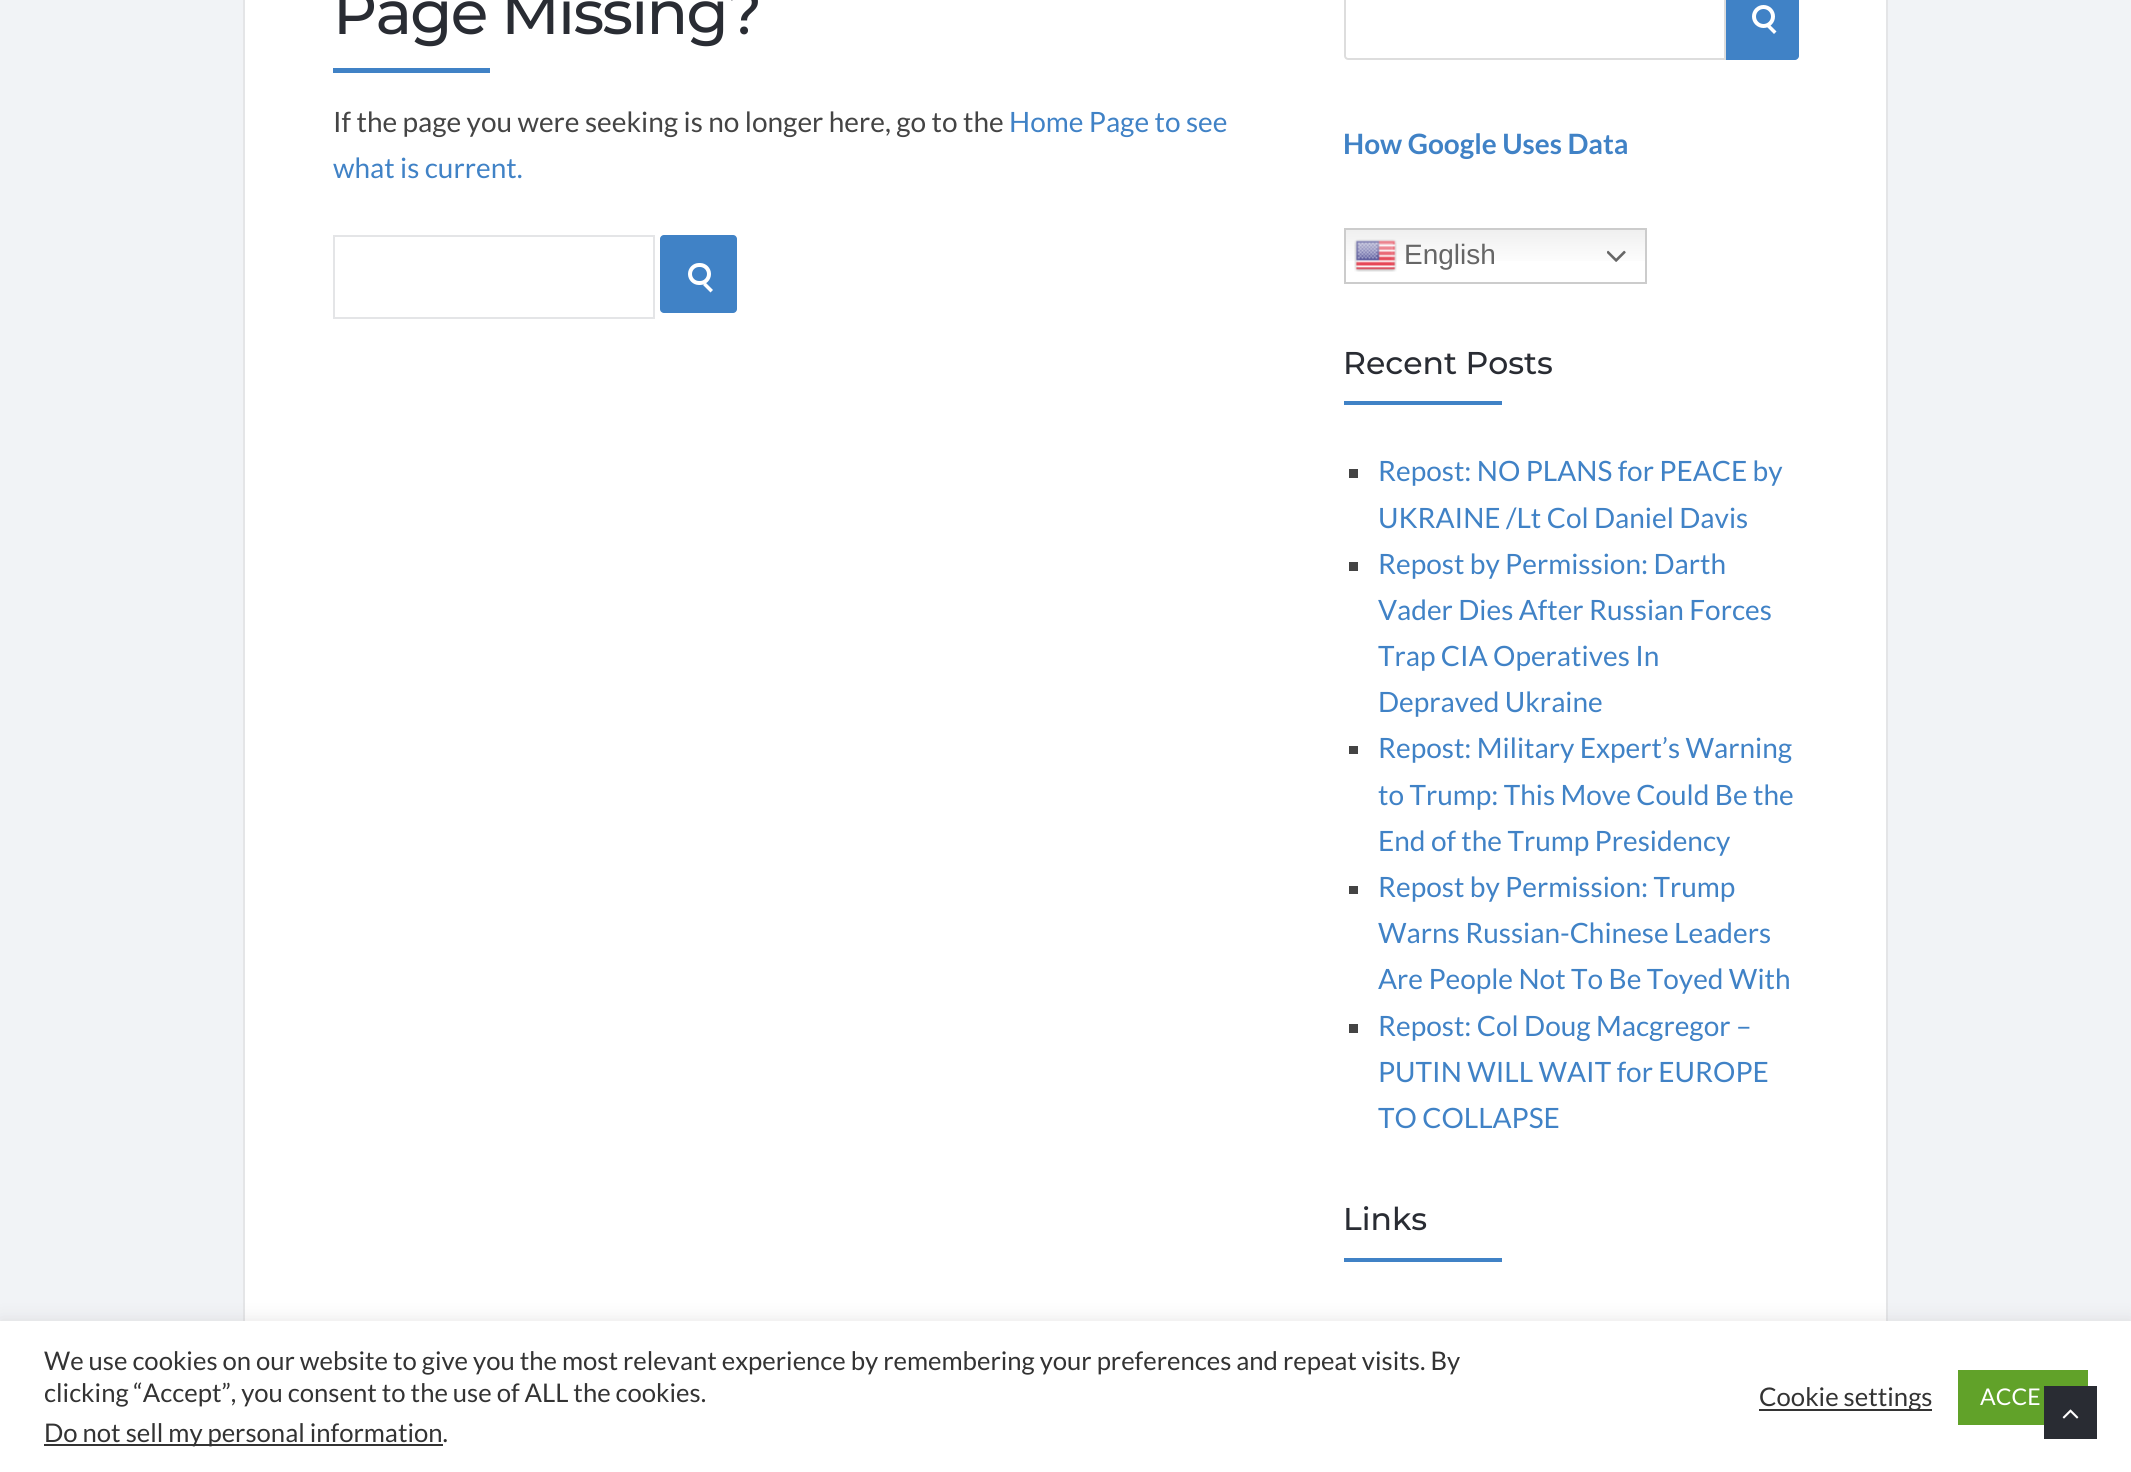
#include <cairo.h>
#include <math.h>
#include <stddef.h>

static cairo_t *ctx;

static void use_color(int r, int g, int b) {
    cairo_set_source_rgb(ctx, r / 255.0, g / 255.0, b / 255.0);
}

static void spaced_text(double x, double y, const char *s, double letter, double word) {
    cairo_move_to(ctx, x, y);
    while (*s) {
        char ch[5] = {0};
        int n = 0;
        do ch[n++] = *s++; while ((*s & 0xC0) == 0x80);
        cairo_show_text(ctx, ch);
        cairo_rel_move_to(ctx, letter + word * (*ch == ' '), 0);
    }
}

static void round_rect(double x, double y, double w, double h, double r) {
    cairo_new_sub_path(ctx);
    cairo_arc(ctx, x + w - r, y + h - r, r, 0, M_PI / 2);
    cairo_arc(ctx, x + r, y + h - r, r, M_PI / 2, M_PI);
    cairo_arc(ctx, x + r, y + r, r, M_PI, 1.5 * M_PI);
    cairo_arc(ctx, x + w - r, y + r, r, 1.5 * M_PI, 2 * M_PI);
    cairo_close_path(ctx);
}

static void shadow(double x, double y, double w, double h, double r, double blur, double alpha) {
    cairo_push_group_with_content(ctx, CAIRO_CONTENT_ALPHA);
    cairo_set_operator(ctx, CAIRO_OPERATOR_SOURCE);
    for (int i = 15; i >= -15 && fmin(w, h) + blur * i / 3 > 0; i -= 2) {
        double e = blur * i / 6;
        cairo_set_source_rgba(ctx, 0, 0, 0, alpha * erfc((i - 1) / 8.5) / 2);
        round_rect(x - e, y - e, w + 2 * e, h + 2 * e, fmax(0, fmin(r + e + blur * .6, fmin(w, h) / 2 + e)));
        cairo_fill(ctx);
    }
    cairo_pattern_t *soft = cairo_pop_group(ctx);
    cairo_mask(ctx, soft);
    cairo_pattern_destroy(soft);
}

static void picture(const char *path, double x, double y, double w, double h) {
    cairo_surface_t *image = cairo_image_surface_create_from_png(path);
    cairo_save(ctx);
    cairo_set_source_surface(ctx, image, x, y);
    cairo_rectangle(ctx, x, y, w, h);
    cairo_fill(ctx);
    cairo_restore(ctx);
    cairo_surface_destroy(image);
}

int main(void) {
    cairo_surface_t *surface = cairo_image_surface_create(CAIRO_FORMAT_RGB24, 2131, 1472);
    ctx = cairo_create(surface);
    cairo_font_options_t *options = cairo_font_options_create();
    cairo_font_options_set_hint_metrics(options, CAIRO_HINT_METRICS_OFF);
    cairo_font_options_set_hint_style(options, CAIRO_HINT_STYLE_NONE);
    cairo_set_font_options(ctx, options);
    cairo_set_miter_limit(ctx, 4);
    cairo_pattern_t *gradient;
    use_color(241, 243, 246);
    cairo_paint(ctx);
    use_color(255, 255, 255);
    cairo_rectangle(ctx, 245, 0, 1641, 1321);
    cairo_fill(ctx);
    cairo_rectangle(ctx, 244, -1, 1643, 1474);
    use_color(228, 229, 231);
    cairo_stroke(ctx);
    cairo_select_font_face(ctx, "Montserrat Medium", CAIRO_FONT_SLANT_NORMAL, CAIRO_FONT_WEIGHT_NORMAL);
    cairo_set_font_size(ctx, 61.25);
    use_color(41, 44, 51);
    spaced_text(333, 34, "Page Missing?", -1.75, 0);
    use_color(64, 130, 198);
    cairo_rectangle(ctx, 333, 68, 157, 5);
    cairo_fill(ctx);
    cairo_select_font_face(ctx, "Lato", CAIRO_FONT_SLANT_NORMAL, CAIRO_FONT_WEIGHT_NORMAL);
    cairo_set_font_size(ctx, 28);
    use_color(68, 68, 68);
    cairo_move_to(ctx, 333, 132);
    cairo_show_text(ctx, "If the page you were seeking is no longer here, go to the");
    use_color(64, 130, 198);
    cairo_move_to(ctx, 1009, 132);
    cairo_show_text(ctx, "Home Page to see");
    cairo_move_to(ctx, 333, 178);
    cairo_show_text(ctx, "what is current.");
    cairo_rectangle(ctx, 334, 236, 320, 82);
    use_color(228, 229, 231);
    cairo_stroke(ctx);
    use_color(64, 130, 198);
    round_rect(660, 235, 77, 78, 4);
    cairo_fill(ctx);
    round_rect(690, 265, 19, 18, 9);
    use_color(255, 255, 255);
    cairo_set_line_width(ctx, 4);
    cairo_stroke(ctx);
    cairo_new_path(ctx);
    cairo_move_to(ctx, 703, 285);
    cairo_line_to(ctx, 705.5, 282.5);
    cairo_line_to(ctx, 713, 290);
    cairo_line_to(ctx, 710.5, 292.5);
    cairo_close_path(ctx);
    cairo_fill(ctx);
    cairo_new_path(ctx);
    cairo_move_to(ctx, 1348, -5);
    cairo_line_to(ctx, 1725, -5);
    cairo_line_to(ctx, 1725, 59);
    cairo_line_to(ctx, 1348, 59);
    cairo_curve_to(ctx, 1346.5, 59, 1345, 57.5, 1345, 56);
    cairo_line_to(ctx, 1345, -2);
    cairo_curve_to(ctx, 1345, -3.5, 1346.5, -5, 1348, -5);
    cairo_close_path(ctx);
    use_color(221, 221, 221);
    cairo_set_line_width(ctx, 2);
    cairo_stroke(ctx);
    use_color(64, 130, 198);
    cairo_new_path(ctx);
    cairo_move_to(ctx, 1726, -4);
    cairo_line_to(ctx, 1795, -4);
    cairo_curve_to(ctx, 1797, -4, 1799, -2, 1799, 0);
    cairo_line_to(ctx, 1799, 56);
    cairo_curve_to(ctx, 1799, 58, 1797, 60, 1795, 60);
    cairo_line_to(ctx, 1726, 60);
    cairo_close_path(ctx);
    cairo_fill(ctx);
    cairo_arc(ctx, 1763.5, 16.5, 9.5, 0, 2 * M_PI);
    use_color(255, 255, 255);
    cairo_set_line_width(ctx, 4);
    cairo_stroke(ctx);
    cairo_new_path(ctx);
    cairo_move_to(ctx, 1766.5, 26.5);
    cairo_line_to(ctx, 1769, 24);
    cairo_line_to(ctx, 1776.5, 31.5);
    cairo_line_to(ctx, 1774, 34);
    cairo_close_path(ctx);
    cairo_fill(ctx);
    cairo_select_font_face(ctx, "Lato", CAIRO_FONT_SLANT_NORMAL, CAIRO_FONT_WEIGHT_BOLD);
    use_color(64, 130, 198);
    cairo_move_to(ctx, 1343, 154);
    cairo_show_text(ctx, "How Google Uses Data");
    gradient = cairo_pattern_create_linear(1495, 228, 1495, 284);
    cairo_pattern_add_color_stop_rgba(gradient, 0, 0.937, 0.937, 0.937, 1);
    cairo_pattern_add_color_stop_rgba(gradient, 0.7, 1, 1, 1, 1);
    cairo_set_source(ctx, gradient);
    cairo_pattern_destroy(gradient);
    cairo_rectangle(ctx, 1346, 230, 299, 31);
    cairo_fill(ctx);
    cairo_rectangle(ctx, 1345, 229, 301, 54);
    use_color(204, 204, 204);
    cairo_set_line_width(ctx, 2);
    cairo_stroke(ctx);
    picture("img1.png", 1354, 239, 43, 33);
    cairo_select_font_face(ctx, "Liberation Sans", CAIRO_FONT_SLANT_NORMAL, CAIRO_FONT_WEIGHT_NORMAL);
    use_color(102, 102, 102);
    cairo_move_to(ctx, 1404, 264);
    cairo_show_text(ctx, "English");
    picture("img2.png", 1607, 250, 19, 12);
    cairo_select_font_face(ctx, "Montserrat Medium", CAIRO_FONT_SLANT_NORMAL, CAIRO_FONT_WEIGHT_NORMAL);
    cairo_set_font_size(ctx, 31.5);
    use_color(41, 44, 51);
    cairo_move_to(ctx, 1343, 374);
    cairo_show_text(ctx, "Recent Posts");
    use_color(64, 130, 198);
    cairo_rectangle(ctx, 1344, 401, 158, 4);
    cairo_fill(ctx);
    use_color(68, 68, 68);
    cairo_rectangle(ctx, 1349, 469, 9, 9);
    cairo_fill(ctx);
    cairo_select_font_face(ctx, "Lato", CAIRO_FONT_SLANT_NORMAL, CAIRO_FONT_WEIGHT_NORMAL);
    cairo_set_font_size(ctx, 28);
    use_color(64, 130, 198);
    cairo_move_to(ctx, 1378, 481);
    cairo_show_text(ctx, "Repost: NO PLANS for PEACE by");
    cairo_move_to(ctx, 1378, 528);
    cairo_show_text(ctx, "UKRAINE /Lt Col Daniel Davis");
    use_color(68, 68, 68);
    cairo_rectangle(ctx, 1349, 562, 9, 9);
    cairo_fill(ctx);
    use_color(64, 130, 198);
    cairo_move_to(ctx, 1378, 574);
    cairo_show_text(ctx, "Repost by Permission: Darth");
    cairo_move_to(ctx, 1378, 620);
    cairo_show_text(ctx, "Vader Dies After Russian Forces");
    cairo_move_to(ctx, 1378, 666);
    cairo_show_text(ctx, "Trap CIA Operatives In");
    cairo_move_to(ctx, 1378, 712);
    cairo_show_text(ctx, "Depraved Ukraine");
    use_color(68, 68, 68);
    cairo_rectangle(ctx, 1349, 746, 9, 8);
    cairo_fill(ctx);
    use_color(64, 130, 198);
    cairo_move_to(ctx, 1378, 758);
    cairo_show_text(ctx, "Repost: Military Expert’s Warning");
    cairo_move_to(ctx, 1378, 805);
    cairo_show_text(ctx, "to Trump: This Move Could Be the");
    cairo_move_to(ctx, 1378, 851);
    cairo_show_text(ctx, "End of the Trump Presidency");
    use_color(68, 68, 68);
    cairo_rectangle(ctx, 1349, 886, 9, 8);
    cairo_fill(ctx);
    use_color(64, 130, 198);
    cairo_move_to(ctx, 1378, 897);
    cairo_show_text(ctx, "Repost by Permission: Trump");
    cairo_move_to(ctx, 1378, 943);
    cairo_show_text(ctx, "Warns Russian-Chinese Leaders");
    cairo_move_to(ctx, 1378, 989);
    cairo_show_text(ctx, "Are People Not To Be Toyed With");
    use_color(68, 68, 68);
    cairo_rectangle(ctx, 1349, 1024, 9, 9);
    cairo_fill(ctx);
    use_color(64, 130, 198);
    cairo_move_to(ctx, 1378, 1036);
    cairo_show_text(ctx, "Repost: Col Doug Macgregor –");
    cairo_move_to(ctx, 1378, 1082);
    cairo_show_text(ctx, "PUTIN WILL WAIT for EUROPE");
    cairo_move_to(ctx, 1378, 1128);
    cairo_show_text(ctx, "TO COLLAPSE");
    cairo_select_font_face(ctx, "Montserrat Medium", CAIRO_FONT_SLANT_NORMAL, CAIRO_FONT_WEIGHT_NORMAL);
    cairo_set_font_size(ctx, 31.5);
    use_color(41, 44, 51);
    cairo_move_to(ctx, 1343, 1230);
    cairo_show_text(ctx, "Links");
    use_color(64, 130, 198);
    cairo_rectangle(ctx, 1344, 1258, 158, 4);
    cairo_fill(ctx);
    use_color(172, 171, 171);
    shadow(0, 1320, 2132, 152, 0, 9, 0.3);
    use_color(255, 255, 255);
    cairo_rectangle(ctx, 0, 1321, 2131, 151);
    cairo_fill(ctx);
    cairo_select_font_face(ctx, "Lato", CAIRO_FONT_SLANT_NORMAL, CAIRO_FONT_WEIGHT_NORMAL);
    cairo_set_font_size(ctx, 25.67);
    use_color(51, 51, 51);
    cairo_move_to(ctx, 44, 1370);
    cairo_show_text(ctx, "We use cookies on our website to give you the most relevant experience by remembering your preferences and repeat visits. By");
    cairo_move_to(ctx, 44, 1402);
    cairo_show_text(ctx, "clicking “Accept”, you consent to the use of ALL the cookies.");
    cairo_rectangle(ctx, 44, 1444, 399, 2);
    cairo_fill(ctx);
    cairo_move_to(ctx, 44, 1442);
    cairo_show_text(ctx, "Do not sell my personal information.");
    cairo_rectangle(ctx, 1759, 1409, 173, 2);
    cairo_fill(ctx);
    cairo_move_to(ctx, 1759, 1406);
    cairo_show_text(ctx, "Cookie settings");
    use_color(97, 162, 41);
    cairo_rectangle(ctx, 1958, 1370, 130, 55);
    cairo_fill(ctx);
    cairo_set_font_size(ctx, 23);
    use_color(255, 255, 255);
    cairo_move_to(ctx, 1980, 1405);
    cairo_show_text(ctx, "ACCE");
    use_color(41, 44, 51);
    cairo_rectangle(ctx, 2044, 1386, 53, 53);
    cairo_fill(ctx);
    picture("img3.png", 2062, 1409, 17, 10);
    cairo_surface_write_to_png(surface, "result.png");
    cairo_font_options_destroy(options);
    cairo_destroy(ctx);
    cairo_surface_destroy(surface);
    return 0;
}
